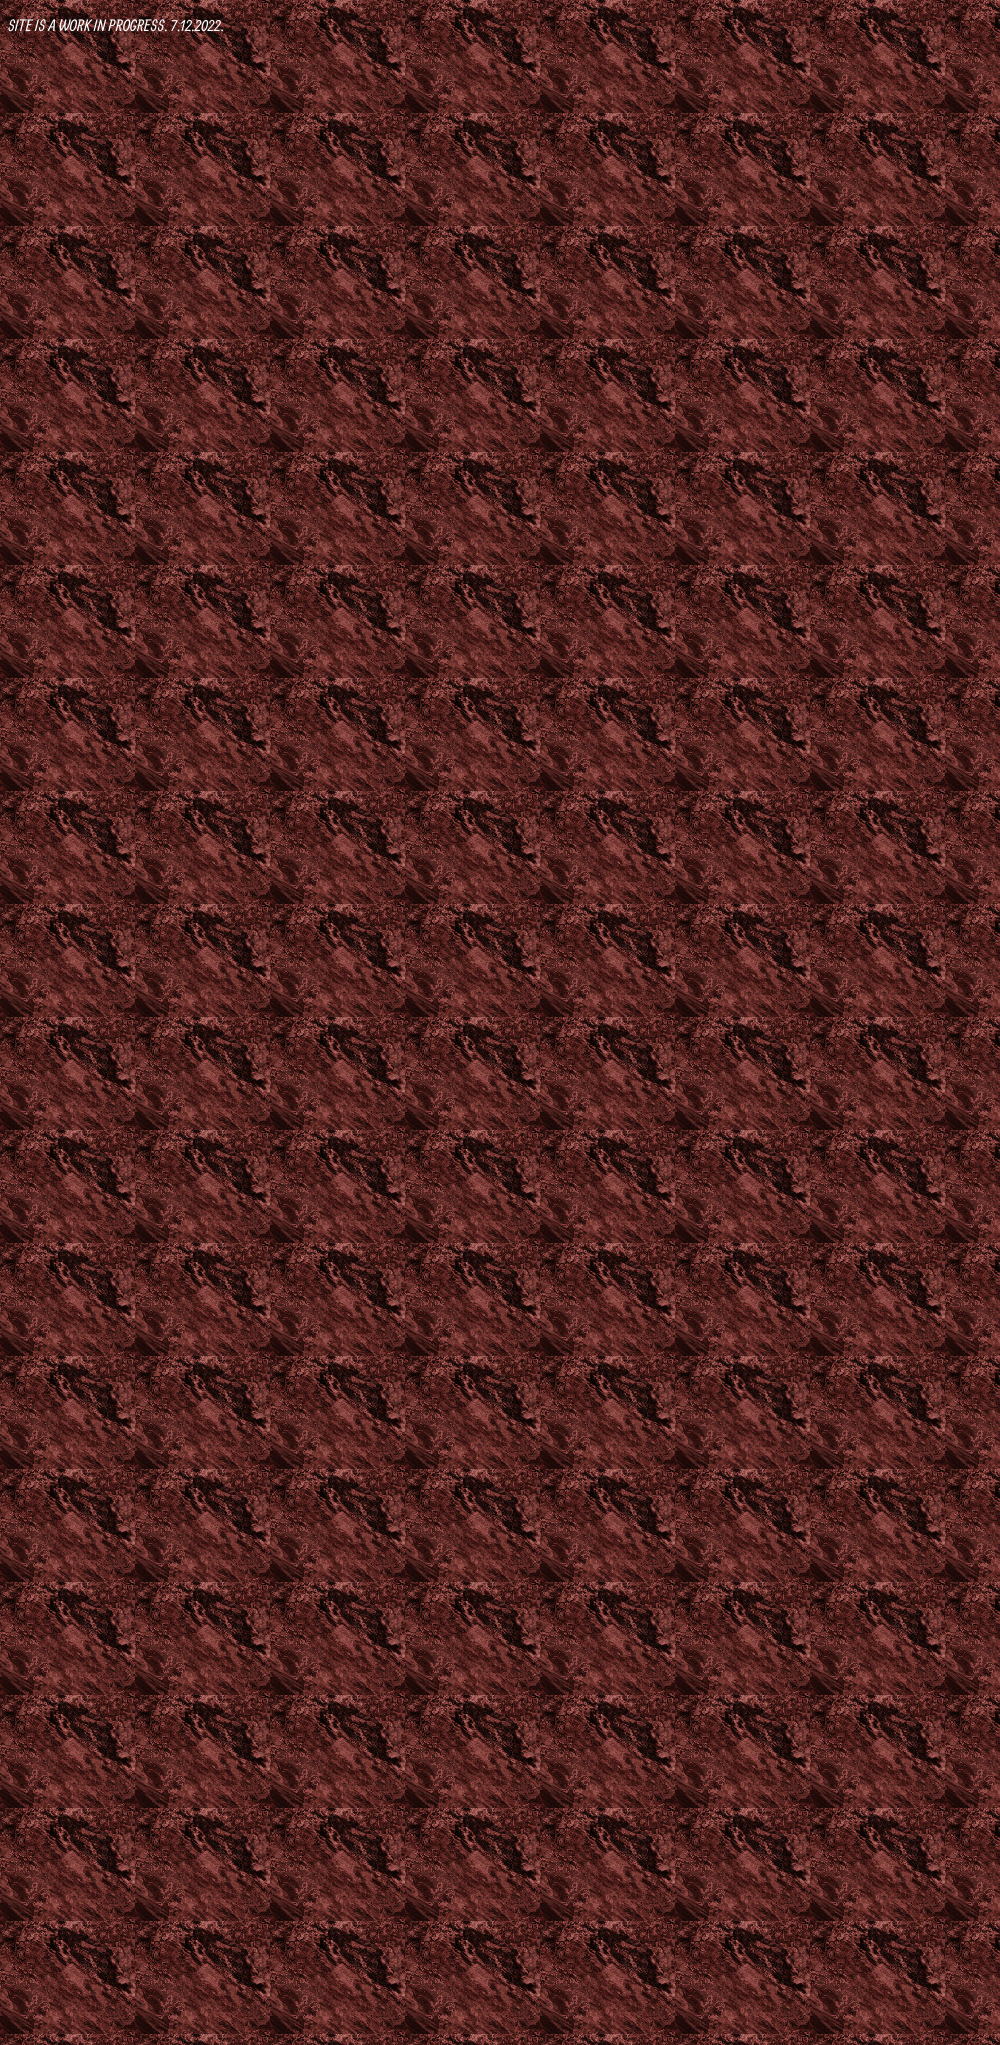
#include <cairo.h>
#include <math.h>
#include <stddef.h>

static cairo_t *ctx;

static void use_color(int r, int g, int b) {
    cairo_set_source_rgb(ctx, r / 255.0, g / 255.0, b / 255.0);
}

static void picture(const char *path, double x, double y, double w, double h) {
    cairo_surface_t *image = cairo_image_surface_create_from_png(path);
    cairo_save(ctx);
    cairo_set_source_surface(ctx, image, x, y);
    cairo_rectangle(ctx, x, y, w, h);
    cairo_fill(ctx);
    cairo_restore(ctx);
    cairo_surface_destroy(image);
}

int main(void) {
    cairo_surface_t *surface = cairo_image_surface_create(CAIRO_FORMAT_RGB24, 1000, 2045);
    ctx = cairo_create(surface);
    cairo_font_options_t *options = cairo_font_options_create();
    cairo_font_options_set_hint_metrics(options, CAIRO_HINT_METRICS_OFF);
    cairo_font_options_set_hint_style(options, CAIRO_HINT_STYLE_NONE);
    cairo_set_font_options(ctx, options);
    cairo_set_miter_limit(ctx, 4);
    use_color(255, 255, 255);
    cairo_paint(ctx);
    picture("img1.png", 0, 0, 1000, 2045);
    cairo_select_font_face(ctx, "Allan", CAIRO_FONT_SLANT_NORMAL, CAIRO_FONT_WEIGHT_NORMAL);
    cairo_set_font_size(ctx, 16);
    use_color(255, 255, 255);
    cairo_move_to(ctx, 8, 31);
    cairo_show_text(ctx, "SITE IS A WORK IN PROGRESS. 7.12.2022.");
    cairo_surface_write_to_png(surface, "result.png");
    cairo_font_options_destroy(options);
    cairo_destroy(ctx);
    cairo_surface_destroy(surface);
    return 0;
}
